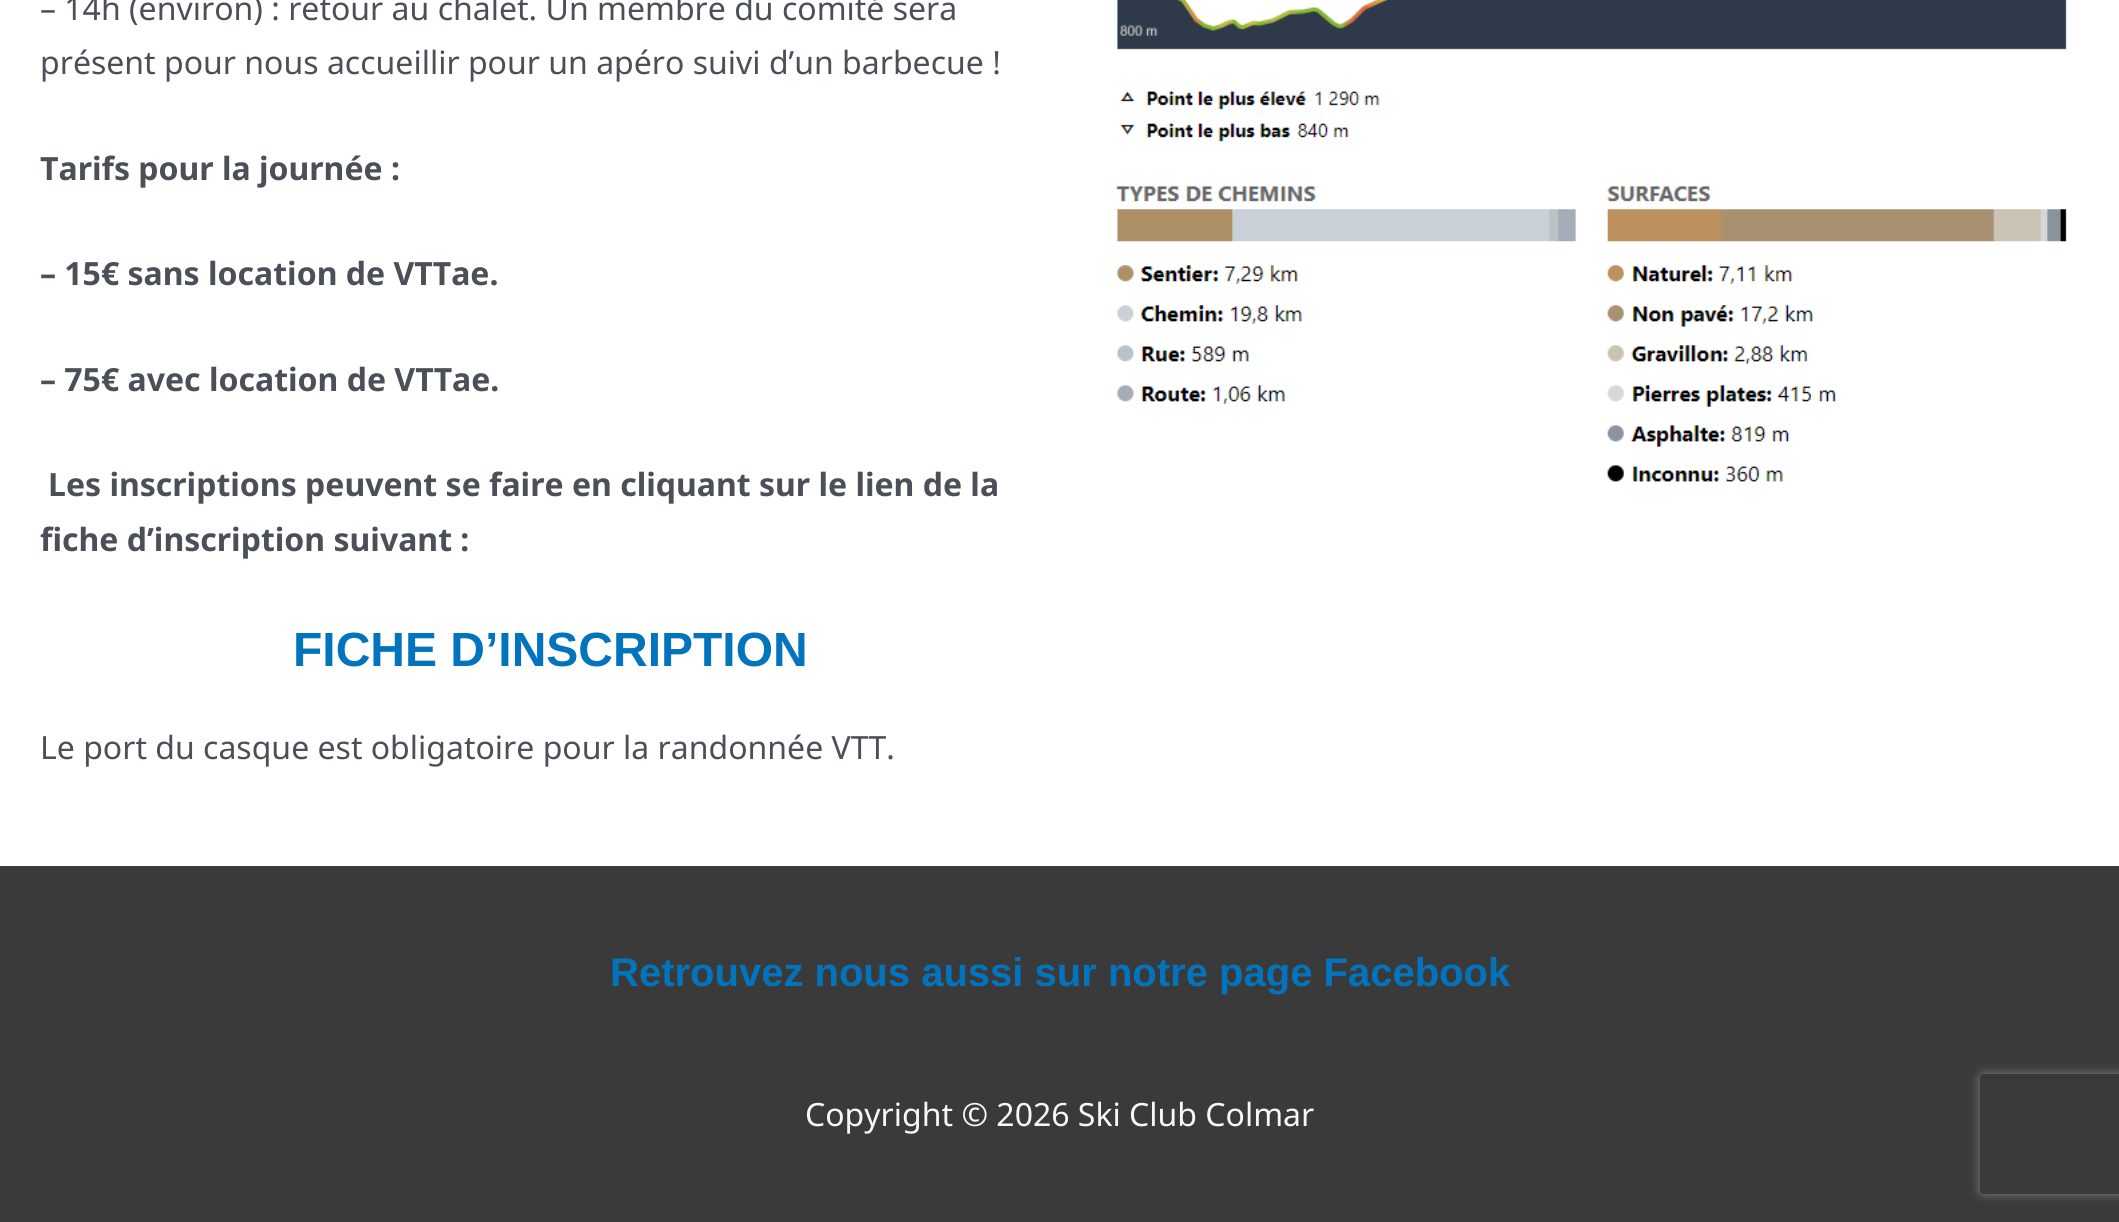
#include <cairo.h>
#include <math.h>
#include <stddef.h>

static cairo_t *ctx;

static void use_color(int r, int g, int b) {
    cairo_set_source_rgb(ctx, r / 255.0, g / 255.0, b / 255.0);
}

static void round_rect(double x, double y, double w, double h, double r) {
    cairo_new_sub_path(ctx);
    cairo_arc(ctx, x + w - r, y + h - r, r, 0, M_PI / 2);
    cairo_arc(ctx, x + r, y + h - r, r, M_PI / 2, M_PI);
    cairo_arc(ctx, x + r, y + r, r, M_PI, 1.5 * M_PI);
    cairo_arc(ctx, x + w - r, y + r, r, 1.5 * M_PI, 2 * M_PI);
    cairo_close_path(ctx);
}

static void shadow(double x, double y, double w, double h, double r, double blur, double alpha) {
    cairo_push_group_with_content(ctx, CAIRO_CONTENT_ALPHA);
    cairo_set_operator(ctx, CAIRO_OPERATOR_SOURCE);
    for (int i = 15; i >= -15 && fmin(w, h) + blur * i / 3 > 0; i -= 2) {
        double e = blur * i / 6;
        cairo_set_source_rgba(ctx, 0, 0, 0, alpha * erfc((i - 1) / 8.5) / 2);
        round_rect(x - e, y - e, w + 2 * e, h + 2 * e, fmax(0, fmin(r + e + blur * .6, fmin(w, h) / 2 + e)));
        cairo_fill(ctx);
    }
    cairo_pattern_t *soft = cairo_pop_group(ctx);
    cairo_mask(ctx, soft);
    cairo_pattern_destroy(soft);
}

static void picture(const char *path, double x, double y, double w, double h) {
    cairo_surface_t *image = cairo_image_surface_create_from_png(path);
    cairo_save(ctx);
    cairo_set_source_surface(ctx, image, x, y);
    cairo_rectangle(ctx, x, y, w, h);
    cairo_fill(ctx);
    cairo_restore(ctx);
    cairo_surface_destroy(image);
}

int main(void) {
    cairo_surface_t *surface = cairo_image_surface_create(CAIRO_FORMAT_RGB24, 2119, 1222);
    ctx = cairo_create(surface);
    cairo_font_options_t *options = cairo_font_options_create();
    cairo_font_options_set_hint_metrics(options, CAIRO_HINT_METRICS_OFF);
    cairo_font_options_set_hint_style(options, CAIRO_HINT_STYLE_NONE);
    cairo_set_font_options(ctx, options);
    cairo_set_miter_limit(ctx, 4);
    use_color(255, 255, 255);
    cairo_paint(ctx);
    cairo_select_font_face(ctx, "Noto Sans", CAIRO_FONT_SLANT_NORMAL, CAIRO_FONT_WEIGHT_NORMAL);
    cairo_set_font_size(ctx, 32);
    use_color(75, 79, 88);
    cairo_move_to(ctx, 40, 20);
    cairo_show_text(ctx, "– 14h (environ) : retour au chalet. Un membre du comité sera");
    cairo_move_to(ctx, 40, 74);
    cairo_show_text(ctx, "présent pour nous accueillir pour un apéro suivi d’un barbecue !");
    cairo_select_font_face(ctx, "Noto Sans", CAIRO_FONT_SLANT_NORMAL, CAIRO_FONT_WEIGHT_BOLD);
    cairo_move_to(ctx, 40, 180);
    cairo_show_text(ctx, "Tarifs pour la journée :");
    cairo_move_to(ctx, 40, 285);
    cairo_show_text(ctx, "– 15€ sans location de VTTae.");
    cairo_move_to(ctx, 40, 391);
    cairo_show_text(ctx, "– 75€ avec location de VTTae.");
    cairo_move_to(ctx, 48, 496);
    cairo_show_text(ctx, "Les inscriptions peuvent se faire en cliquant sur le lien de la");
    cairo_move_to(ctx, 40, 551);
    cairo_show_text(ctx, "fiche d’inscription suivant :");
    cairo_select_font_face(ctx, "Liberation Sans", CAIRO_FONT_SLANT_NORMAL, CAIRO_FONT_WEIGHT_BOLD);
    cairo_set_font_size(ctx, 48);
    use_color(2, 116, 190);
    cairo_move_to(ctx, 293, 666);
    cairo_show_text(ctx, "FICHE D’INSCRIPTION");
    cairo_select_font_face(ctx, "Noto Sans", CAIRO_FONT_SLANT_NORMAL, CAIRO_FONT_WEIGHT_NORMAL);
    cairo_set_font_size(ctx, 32);
    use_color(75, 79, 88);
    cairo_move_to(ctx, 40, 759);
    cairo_show_text(ctx, "Le port du casque est obligatoire pour la randonnée VTT.");
    picture("img1.png", 1115, 0, 952, 482);
    use_color(58, 58, 58);
    cairo_rectangle(ctx, 0, 866, 2119, 356);
    cairo_fill(ctx);
    cairo_select_font_face(ctx, "Liberation Sans", CAIRO_FONT_SLANT_NORMAL, CAIRO_FONT_WEIGHT_BOLD);
    cairo_set_font_size(ctx, 40);
    use_color(2, 116, 190);
    cairo_move_to(ctx, 610, 986);
    cairo_show_text(ctx, "Retrouvez nous aussi sur notre page Facebook");
    cairo_select_font_face(ctx, "Noto Sans", CAIRO_FONT_SLANT_NORMAL, CAIRO_FONT_WEIGHT_NORMAL);
    cairo_set_font_size(ctx, 32);
    use_color(247, 247, 247);
    cairo_move_to(ctx, 805, 1126);
    cairo_show_text(ctx, "Copyright © 2026 Ski Club Colmar");
    cairo_save(ctx);
    cairo_set_fill_rule(ctx, CAIRO_FILL_RULE_EVEN_ODD);
    cairo_new_path(ctx);
    cairo_move_to(ctx, 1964, 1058);
    cairo_line_to(ctx, 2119, 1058);
    cairo_line_to(ctx, 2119, 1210);
    cairo_line_to(ctx, 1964, 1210);
    cairo_close_path(ctx);
    cairo_move_to(ctx, 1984, 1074);
    cairo_line_to(ctx, 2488, 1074);
    cairo_curve_to(ctx, 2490, 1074, 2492, 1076, 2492, 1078);
    cairo_line_to(ctx, 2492, 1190);
    cairo_curve_to(ctx, 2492, 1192, 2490, 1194, 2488, 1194);
    cairo_line_to(ctx, 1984, 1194);
    cairo_curve_to(ctx, 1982, 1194, 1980, 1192, 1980, 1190);
    cairo_line_to(ctx, 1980, 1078);
    cairo_curve_to(ctx, 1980, 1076, 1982, 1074, 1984, 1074);
    cairo_close_path(ctx);
    cairo_clip(ctx);
    use_color(128, 128, 128);
    shadow(1980, 1074, 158, 120, 4, 5, 1);
    cairo_restore(ctx);
    cairo_surface_write_to_png(surface, "result.png");
    cairo_font_options_destroy(options);
    cairo_destroy(ctx);
    cairo_surface_destroy(surface);
    return 0;
}
